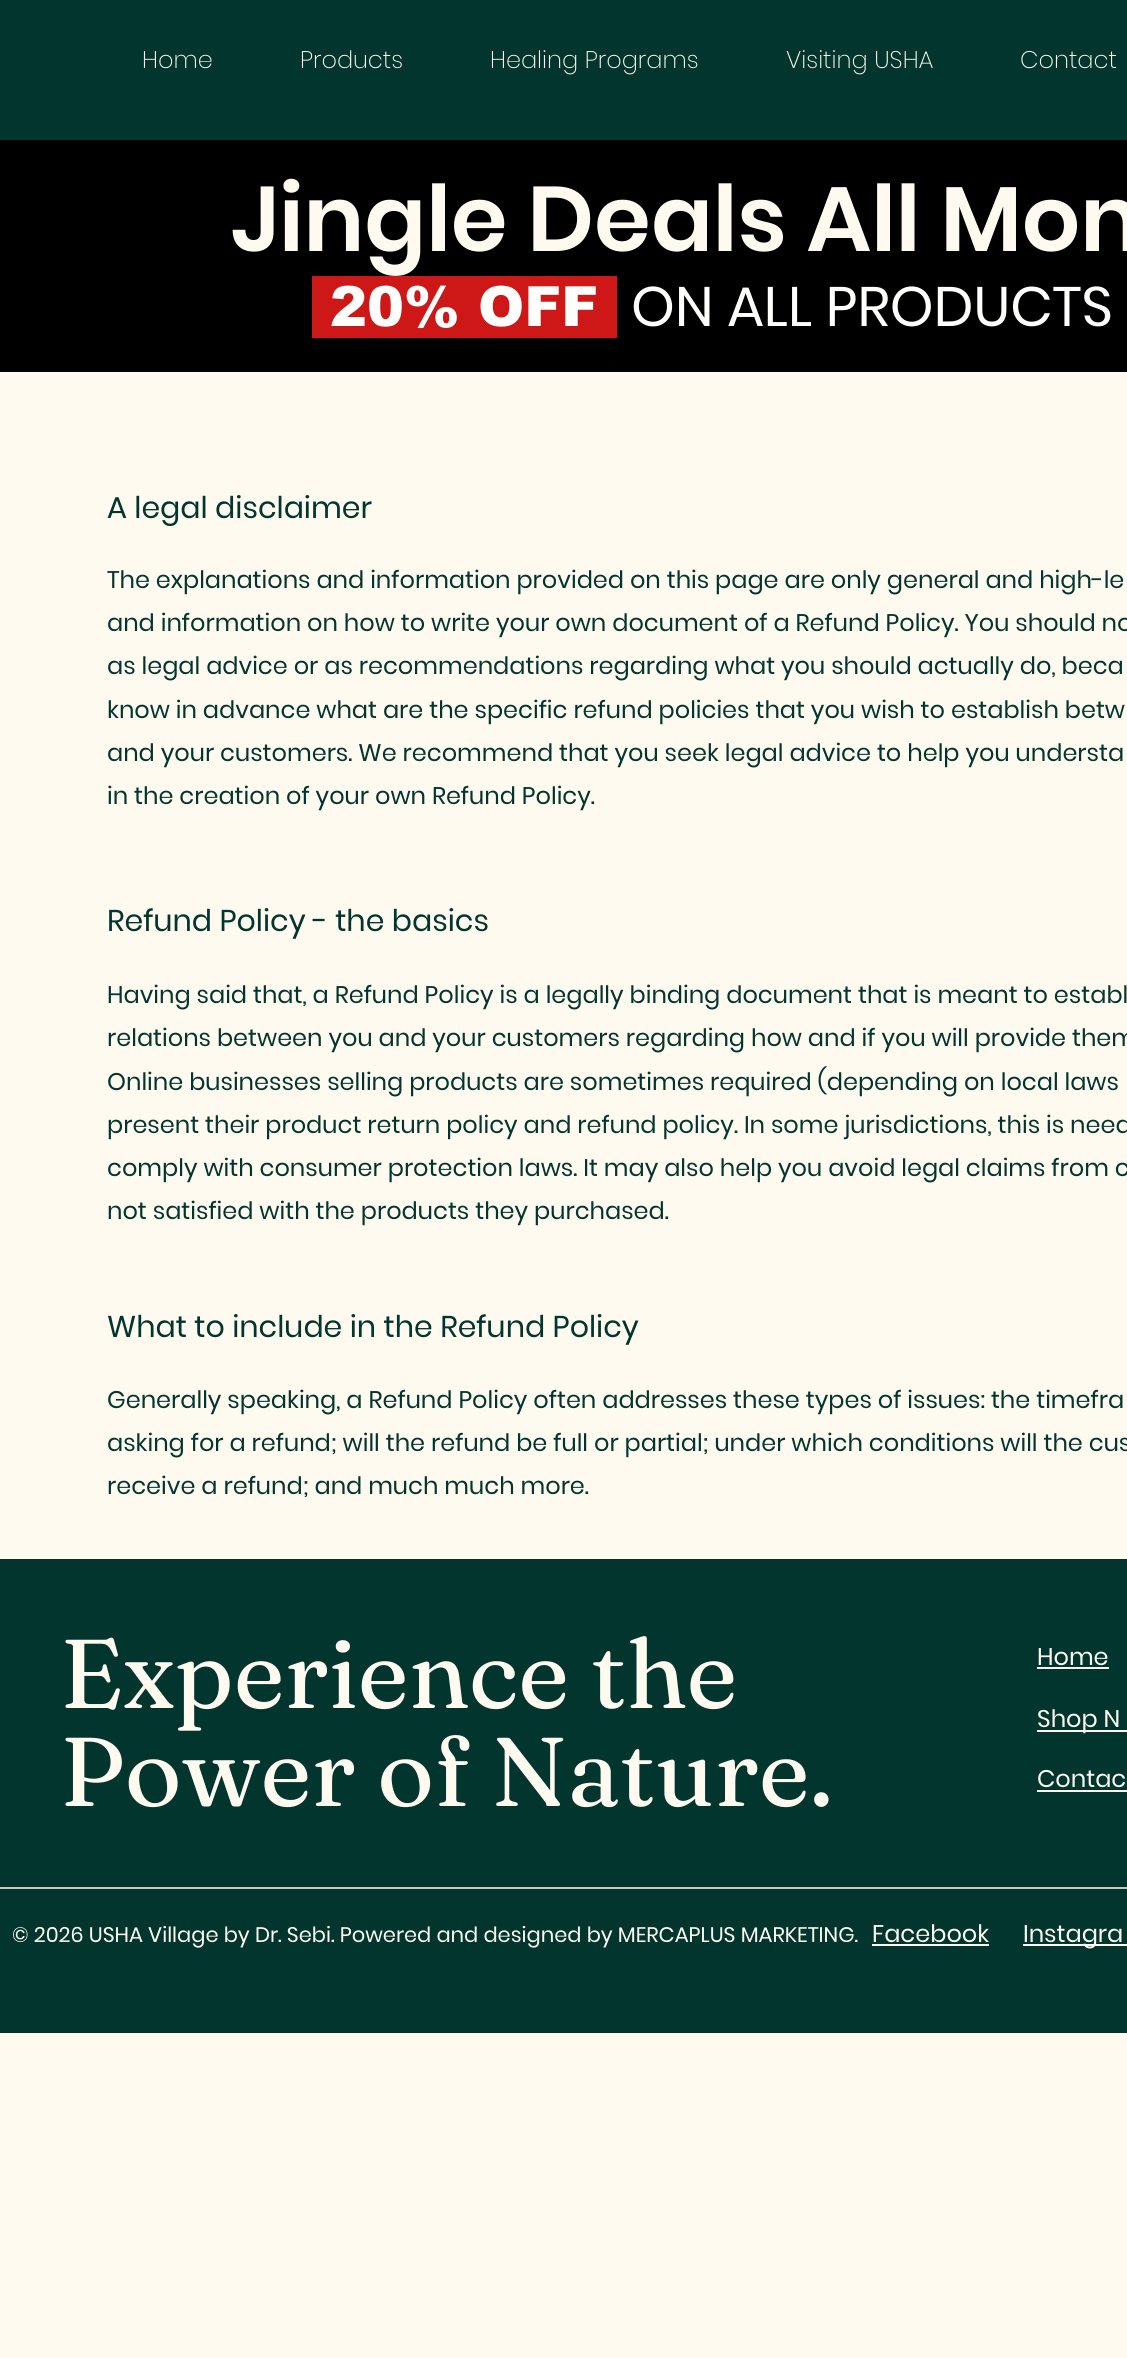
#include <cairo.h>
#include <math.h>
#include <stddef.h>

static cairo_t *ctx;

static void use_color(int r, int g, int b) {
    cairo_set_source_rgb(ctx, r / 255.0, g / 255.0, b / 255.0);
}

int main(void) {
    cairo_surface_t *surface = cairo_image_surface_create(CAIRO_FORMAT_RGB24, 1127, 2358);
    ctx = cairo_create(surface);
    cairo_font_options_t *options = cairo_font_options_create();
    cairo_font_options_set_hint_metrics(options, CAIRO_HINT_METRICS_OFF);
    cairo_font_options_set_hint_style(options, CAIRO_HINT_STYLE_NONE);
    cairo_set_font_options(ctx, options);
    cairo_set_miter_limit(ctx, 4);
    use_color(254, 250, 240);
    cairo_paint(ctx);
    use_color(2, 53, 46);
    cairo_rectangle(ctx, 0, 0, 1127, 140);
    cairo_fill(ctx);
    cairo_select_font_face(ctx, "Poppins ExtraLight", CAIRO_FONT_SLANT_NORMAL, CAIRO_FONT_WEIGHT_NORMAL);
    cairo_set_font_size(ctx, 24);
    use_color(254, 250, 240);
    cairo_move_to(ctx, 142, 68);
    cairo_show_text(ctx, "Home");
    cairo_move_to(ctx, 300, 68);
    cairo_show_text(ctx, "Products");
    cairo_move_to(ctx, 490, 68);
    cairo_show_text(ctx, "Healing Programs");
    cairo_move_to(ctx, 786, 68);
    cairo_show_text(ctx, "Visiting USHA");
    cairo_move_to(ctx, 1020, 68);
    cairo_show_text(ctx, "Contact");
    use_color(0, 0, 0);
    cairo_rectangle(ctx, 0, 140, 1127, 232);
    cairo_fill(ctx);
    cairo_select_font_face(ctx, "Poppins SemiBold", CAIRO_FONT_SLANT_NORMAL, CAIRO_FONT_WEIGHT_NORMAL);
    cairo_set_font_size(ctx, 91.5);
    use_color(254, 250, 240);
    cairo_move_to(ctx, 231, 251);
    cairo_show_text(ctx, "Jingle Deals All Mon");
    use_color(206, 24, 24);
    cairo_rectangle(ctx, 312, 276, 305, 62);
    cairo_fill(ctx);
    cairo_select_font_face(ctx, "arial Black", CAIRO_FONT_SLANT_NORMAL, CAIRO_FONT_WEIGHT_NORMAL);
    cairo_set_font_size(ctx, 55.5);
    use_color(255, 255, 254);
    cairo_move_to(ctx, 330, 326);
    cairo_show_text(ctx, "20% OFF");
    cairo_select_font_face(ctx, "Poppins", CAIRO_FONT_SLANT_NORMAL, CAIRO_FONT_WEIGHT_NORMAL);
    cairo_move_to(ctx, 631, 326);
    cairo_show_text(ctx, "ON ALL PRODUCTS");
    cairo_set_font_size(ctx, 30);
    use_color(2, 53, 46);
    cairo_move_to(ctx, 107, 518);
    cairo_show_text(ctx, "A legal disclaimer");
    cairo_set_font_size(ctx, 24);
    cairo_move_to(ctx, 107, 588);
    cairo_show_text(ctx, "The explanations and information provided on this page are only general and high-le");
    cairo_move_to(ctx, 107, 631);
    cairo_show_text(ctx, "and information on how to write your own document of a Refund Policy. You should no");
    cairo_move_to(ctx, 107, 674);
    cairo_show_text(ctx, "as legal advice or as recommendations regarding what you should actually do, beca");
    cairo_move_to(ctx, 107, 718);
    cairo_show_text(ctx, "know in advance what are the specific refund policies that you wish to establish betw");
    cairo_move_to(ctx, 107, 761);
    cairo_show_text(ctx, "and your customers. We recommend that you seek legal advice to help you understa");
    cairo_move_to(ctx, 107, 804);
    cairo_show_text(ctx, "in the creation of your own Refund Policy.");
    cairo_set_font_size(ctx, 30);
    cairo_move_to(ctx, 107, 931);
    cairo_show_text(ctx, "Refund Policy - the basics");
    cairo_set_font_size(ctx, 24);
    cairo_move_to(ctx, 107, 1003);
    cairo_show_text(ctx, "Having said that, a Refund Policy is a legally binding document that is meant to establ");
    cairo_move_to(ctx, 107, 1046);
    cairo_show_text(ctx, "relations between you and your customers regarding how and if you will provide them");
    cairo_move_to(ctx, 107, 1090);
    cairo_show_text(ctx, "Online businesses selling products are sometimes required (depending on local laws");
    cairo_move_to(ctx, 107, 1133);
    cairo_show_text(ctx, "present their product return policy and refund policy. In some jurisdictions, this is need");
    cairo_move_to(ctx, 107, 1176);
    cairo_show_text(ctx, "comply with consumer protection laws. It may also help you avoid legal claims from c");
    cairo_move_to(ctx, 107, 1219);
    cairo_show_text(ctx, "not satisfied with the products they purchased.");
    cairo_set_font_size(ctx, 30);
    cairo_move_to(ctx, 107, 1337);
    cairo_show_text(ctx, "What to include in the Refund Policy");
    cairo_set_font_size(ctx, 24);
    cairo_move_to(ctx, 107, 1408);
    cairo_show_text(ctx, "Generally speaking, a Refund Policy often addresses these types of issues: the timefra");
    cairo_move_to(ctx, 107, 1451);
    cairo_show_text(ctx, "asking for a refund; will the refund be full or partial; under which conditions will the cus");
    cairo_move_to(ctx, 107, 1494);
    cairo_show_text(ctx, "receive a refund; and much much more.");
    cairo_rectangle(ctx, 0, 1559, 1127, 474);
    cairo_fill(ctx);
    cairo_select_font_face(ctx, "Fraunces", CAIRO_FONT_SLANT_NORMAL, CAIRO_FONT_WEIGHT_NORMAL);
    cairo_set_font_size(ctx, 97.5);
    use_color(254, 250, 240);
    cairo_move_to(ctx, 60, 1708);
    cairo_show_text(ctx, "Experience the");
    cairo_move_to(ctx, 60, 1806);
    cairo_show_text(ctx, "Power of Nature.");
    cairo_select_font_face(ctx, "Poppins", CAIRO_FONT_SLANT_NORMAL, CAIRO_FONT_WEIGHT_NORMAL);
    cairo_set_font_size(ctx, 24);
    cairo_move_to(ctx, 1037, 1665);
    cairo_show_text(ctx, "Home");
    use_color(255, 245, 240);
    cairo_rectangle(ctx, 1037, 1667, 72, 2);
    cairo_fill(ctx);
    cairo_rectangle(ctx, 1037, 1730, 90, 2);
    cairo_fill(ctx);
    use_color(254, 250, 240);
    cairo_move_to(ctx, 1037, 1727);
    cairo_show_text(ctx, "Shop N");
    cairo_move_to(ctx, 1037, 1787);
    cairo_show_text(ctx, "Contac");
    use_color(255, 245, 240);
    cairo_rectangle(ctx, 1037, 1790, 90, 2);
    cairo_fill(ctx);
    use_color(203, 200, 192);
    cairo_rectangle(ctx, 0, 1887, 1127, 2);
    cairo_fill(ctx);
    cairo_set_font_size(ctx, 21);
    use_color(254, 250, 240);
    cairo_move_to(ctx, 12, 1942);
    cairo_show_text(ctx, "© 2026 USHA Village by Dr. Sebi. Powered and designed by MERCAPLUS MARKETING.");
    cairo_set_font_size(ctx, 24);
    cairo_move_to(ctx, 872, 1942);
    cairo_show_text(ctx, "Facebook");
    cairo_rectangle(ctx, 872, 1944, 117, 2);
    cairo_fill(ctx);
    cairo_rectangle(ctx, 1023, 1944, 104, 2);
    cairo_fill(ctx);
    cairo_move_to(ctx, 1023, 1942);
    cairo_show_text(ctx, "Instagra");
    cairo_surface_write_to_png(surface, "result.png");
    cairo_font_options_destroy(options);
    cairo_destroy(ctx);
    cairo_surface_destroy(surface);
    return 0;
}
